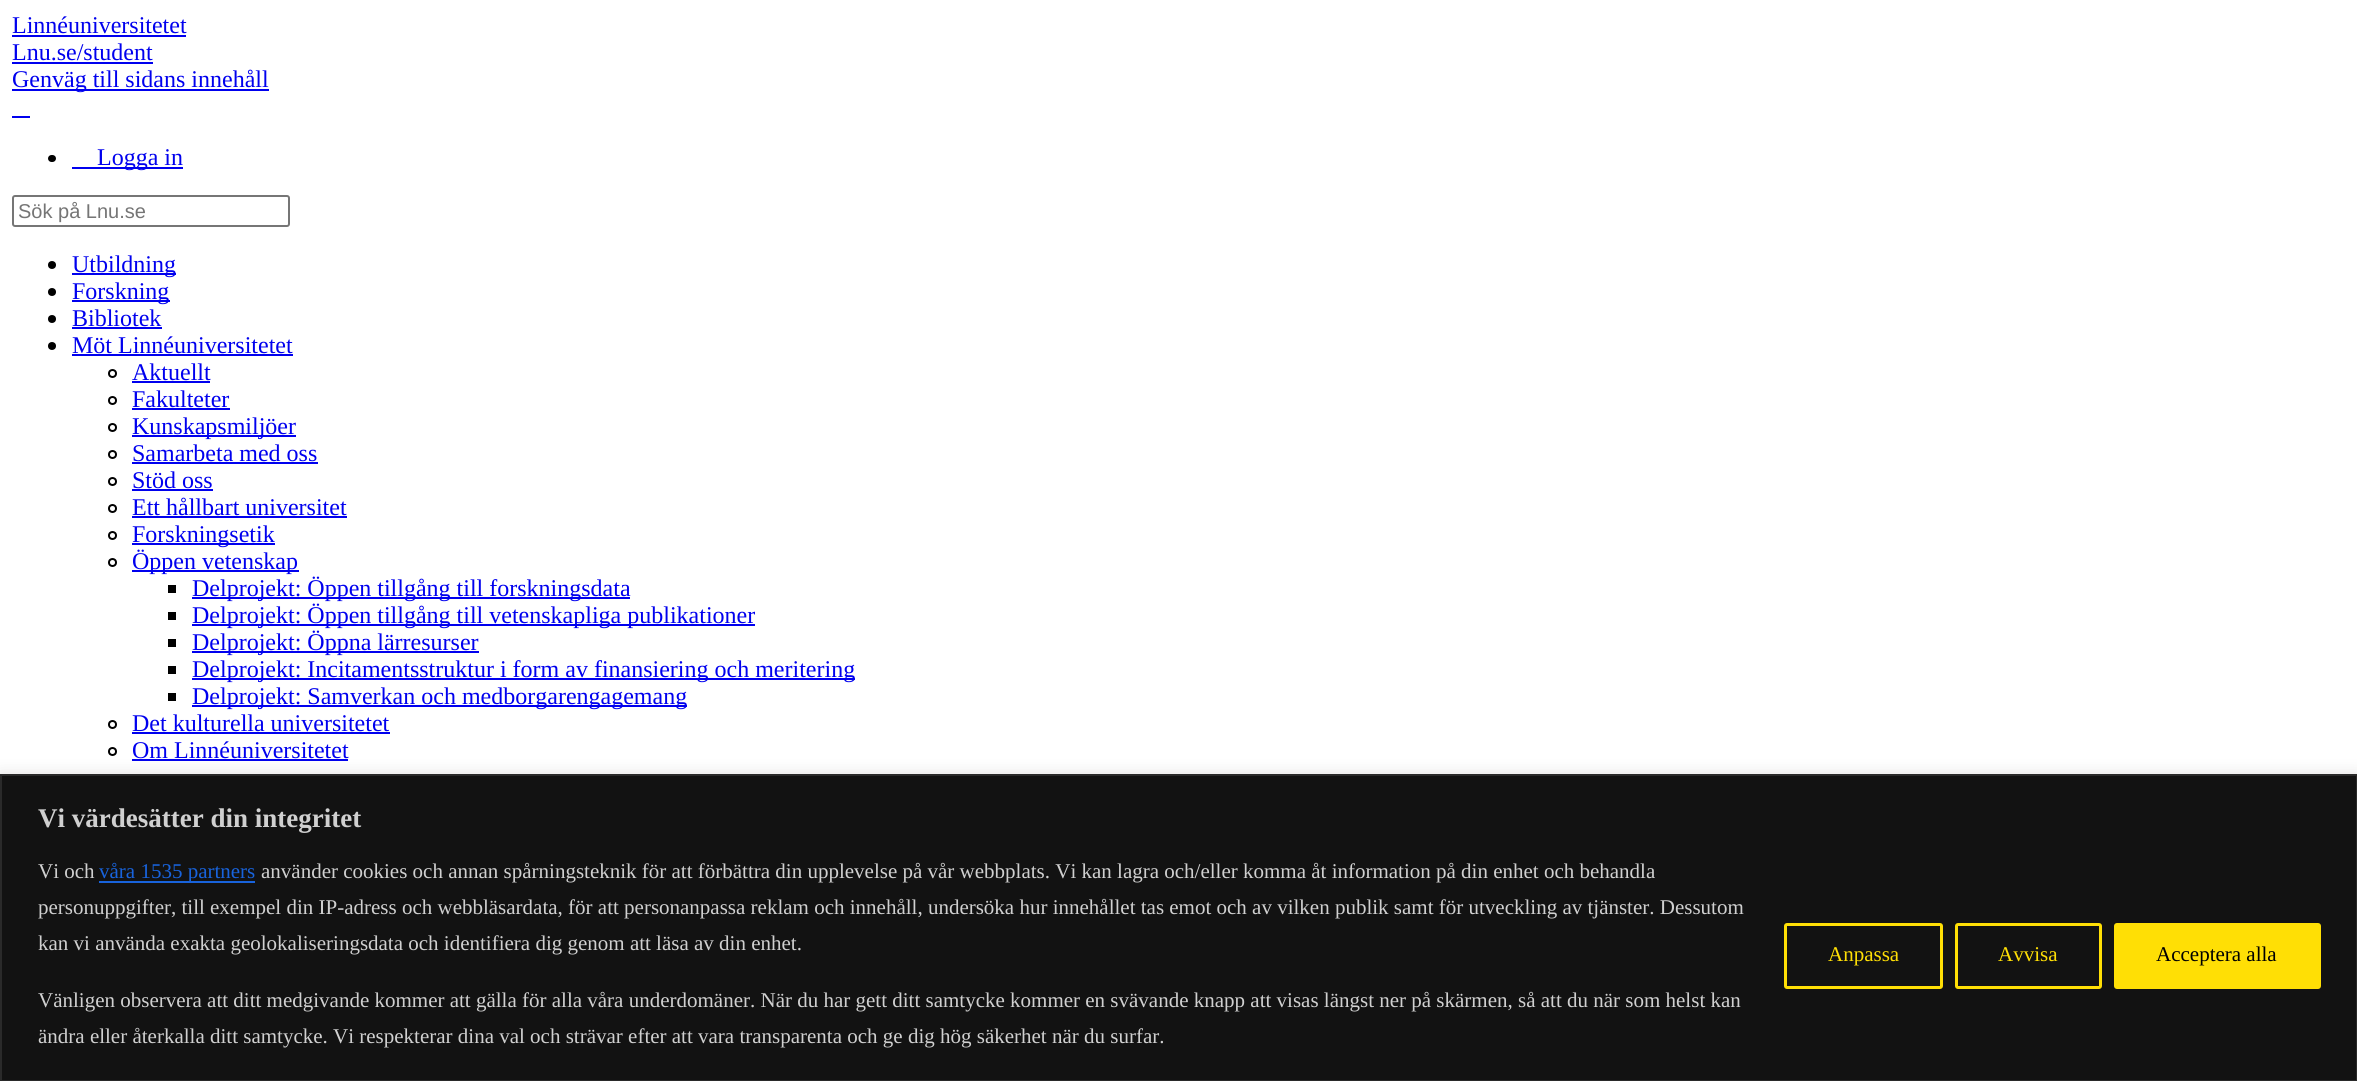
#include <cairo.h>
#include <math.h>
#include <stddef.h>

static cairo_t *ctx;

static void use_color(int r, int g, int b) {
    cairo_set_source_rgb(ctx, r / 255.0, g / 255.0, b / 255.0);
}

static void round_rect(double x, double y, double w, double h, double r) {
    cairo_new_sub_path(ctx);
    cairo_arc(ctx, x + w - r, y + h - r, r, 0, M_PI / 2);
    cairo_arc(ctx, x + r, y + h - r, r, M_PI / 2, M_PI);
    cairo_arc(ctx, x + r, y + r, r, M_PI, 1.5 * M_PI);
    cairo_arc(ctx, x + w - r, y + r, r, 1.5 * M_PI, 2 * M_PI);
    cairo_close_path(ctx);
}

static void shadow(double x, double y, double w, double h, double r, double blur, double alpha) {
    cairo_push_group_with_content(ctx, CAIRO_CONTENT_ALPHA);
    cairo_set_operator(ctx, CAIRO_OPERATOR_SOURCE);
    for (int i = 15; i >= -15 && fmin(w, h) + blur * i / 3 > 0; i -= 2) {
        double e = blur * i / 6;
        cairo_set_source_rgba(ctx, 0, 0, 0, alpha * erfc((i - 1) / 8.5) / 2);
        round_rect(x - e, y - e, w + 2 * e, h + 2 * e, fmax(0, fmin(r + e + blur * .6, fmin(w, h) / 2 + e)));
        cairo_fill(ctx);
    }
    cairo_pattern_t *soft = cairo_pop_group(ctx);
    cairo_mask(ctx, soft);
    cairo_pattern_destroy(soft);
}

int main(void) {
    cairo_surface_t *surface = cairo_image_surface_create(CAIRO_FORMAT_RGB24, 2357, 1081);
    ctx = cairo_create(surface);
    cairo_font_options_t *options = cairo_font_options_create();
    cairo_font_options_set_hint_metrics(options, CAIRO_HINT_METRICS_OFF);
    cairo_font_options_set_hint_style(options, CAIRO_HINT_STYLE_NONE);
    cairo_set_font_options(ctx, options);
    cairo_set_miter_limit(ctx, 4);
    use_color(255, 255, 255);
    cairo_paint(ctx);
    cairo_select_font_face(ctx, "Liberation Serif", CAIRO_FONT_SLANT_NORMAL, CAIRO_FONT_WEIGHT_NORMAL);
    cairo_set_font_size(ctx, 24);
    use_color(0, 0, 238);
    cairo_move_to(ctx, 12, 33);
    cairo_show_text(ctx, "Linnéuniversitetet");
    cairo_rectangle(ctx, 12, 35, 174, 2);
    cairo_fill(ctx);
    cairo_move_to(ctx, 12, 60);
    cairo_show_text(ctx, "Lnu.se/student");
    cairo_rectangle(ctx, 12, 62, 141, 2);
    cairo_fill(ctx);
    cairo_rectangle(ctx, 12, 89, 257, 2);
    cairo_fill(ctx);
    cairo_move_to(ctx, 12, 87);
    cairo_show_text(ctx, "Genväg till sidans innehåll");
    cairo_rectangle(ctx, 12, 116, 18, 2);
    cairo_fill(ctx);
    use_color(0, 0, 0);
    round_rect(48, 155, 8, 7, 3.5);
    cairo_fill(ctx);
    use_color(0, 0, 238);
    cairo_rectangle(ctx, 72, 167, 111, 2);
    cairo_fill(ctx);
    cairo_move_to(ctx, 97, 165);
    cairo_show_text(ctx, "Logga in");
    round_rect(13, 196, 276, 30, 2);
    use_color(118, 118, 118);
    cairo_stroke(ctx);
    cairo_select_font_face(ctx, "Liberation Sans", CAIRO_FONT_SLANT_NORMAL, CAIRO_FONT_WEIGHT_NORMAL);
    cairo_set_font_size(ctx, 20);
    use_color(117, 117, 117);
    cairo_move_to(ctx, 18, 218);
    cairo_show_text(ctx, "Sök på Lnu.se");
    use_color(0, 0, 0);
    cairo_new_path(ctx);
    cairo_arc(ctx, 52, 265, 4, 0, 2 * M_PI);
    cairo_fill(ctx);
    use_color(0, 0, 238);
    cairo_rectangle(ctx, 72, 273, 104, 2);
    cairo_fill(ctx);
    cairo_select_font_face(ctx, "Liberation Serif", CAIRO_FONT_SLANT_NORMAL, CAIRO_FONT_WEIGHT_NORMAL);
    cairo_set_font_size(ctx, 24);
    cairo_move_to(ctx, 72, 272);
    cairo_show_text(ctx, "Utbildning");
    use_color(0, 0, 0);
    cairo_new_path(ctx);
    cairo_arc(ctx, 52, 292, 4, 0, 2 * M_PI);
    cairo_fill(ctx);
    use_color(0, 0, 238);
    cairo_rectangle(ctx, 72, 300, 98, 2);
    cairo_fill(ctx);
    cairo_move_to(ctx, 72, 299);
    cairo_show_text(ctx, "Forskning");
    use_color(0, 0, 0);
    cairo_new_path(ctx);
    cairo_arc(ctx, 52, 319, 4, 0, 2 * M_PI);
    cairo_fill(ctx);
    use_color(0, 0, 238);
    cairo_move_to(ctx, 72, 326);
    cairo_show_text(ctx, "Bibliotek");
    cairo_rectangle(ctx, 72, 327, 90, 2);
    cairo_fill(ctx);
    use_color(0, 0, 0);
    cairo_arc(ctx, 52, 346, 4, 0, 2 * M_PI);
    cairo_fill(ctx);
    use_color(0, 0, 238);
    cairo_move_to(ctx, 72, 353);
    cairo_show_text(ctx, "Möt Linnéuniversitetet");
    cairo_rectangle(ctx, 72, 354, 221, 2);
    cairo_fill(ctx);
    cairo_arc(ctx, 112.5, 373.5, 3.5, 0, 2 * M_PI);
    use_color(0, 0, 0);
    cairo_stroke(ctx);
    use_color(0, 0, 238);
    cairo_move_to(ctx, 132, 380);
    cairo_show_text(ctx, "Aktuellt");
    cairo_rectangle(ctx, 132, 381, 78, 2);
    cairo_fill(ctx);
    cairo_arc(ctx, 112.5, 400.5, 3.5, 0, 2 * M_PI);
    use_color(0, 0, 0);
    cairo_stroke(ctx);
    use_color(0, 0, 238);
    cairo_move_to(ctx, 132, 407);
    cairo_show_text(ctx, "Fakulteter");
    cairo_rectangle(ctx, 132, 408, 98, 2);
    cairo_fill(ctx);
    cairo_arc(ctx, 112.5, 427.5, 3.5, 0, 2 * M_PI);
    use_color(0, 0, 0);
    cairo_stroke(ctx);
    use_color(0, 0, 238);
    cairo_rectangle(ctx, 132, 435, 164, 2);
    cairo_fill(ctx);
    cairo_move_to(ctx, 132, 434);
    cairo_show_text(ctx, "Kunskapsmiljöer");
    cairo_new_path(ctx);
    cairo_arc(ctx, 112.5, 454.5, 3.5, 0, 2 * M_PI);
    use_color(0, 0, 0);
    cairo_stroke(ctx);
    use_color(0, 0, 238);
    cairo_move_to(ctx, 132, 461);
    cairo_show_text(ctx, "Samarbeta med oss");
    cairo_rectangle(ctx, 132, 462, 186, 2);
    cairo_fill(ctx);
    cairo_arc(ctx, 112.5, 481.5, 3.5, 0, 2 * M_PI);
    use_color(0, 0, 0);
    cairo_stroke(ctx);
    use_color(0, 0, 238);
    cairo_move_to(ctx, 132, 488);
    cairo_show_text(ctx, "Stöd oss");
    cairo_rectangle(ctx, 132, 489, 81, 2);
    cairo_fill(ctx);
    cairo_arc(ctx, 112.5, 508.5, 3.5, 0, 2 * M_PI);
    use_color(0, 0, 0);
    cairo_stroke(ctx);
    use_color(0, 0, 238);
    cairo_move_to(ctx, 132, 515);
    cairo_show_text(ctx, "Ett hållbart universitet");
    cairo_rectangle(ctx, 132, 516, 215, 2);
    cairo_fill(ctx);
    cairo_arc(ctx, 112.5, 535.5, 3.5, 0, 2 * M_PI);
    use_color(0, 0, 0);
    cairo_stroke(ctx);
    use_color(0, 0, 238);
    cairo_rectangle(ctx, 132, 543, 143, 2);
    cairo_fill(ctx);
    cairo_move_to(ctx, 132, 542);
    cairo_show_text(ctx, "Forskningsetik");
    cairo_new_path(ctx);
    cairo_arc(ctx, 112.5, 562.5, 3.5, 0, 2 * M_PI);
    use_color(0, 0, 0);
    cairo_stroke(ctx);
    use_color(0, 0, 238);
    cairo_rectangle(ctx, 132, 570, 167, 2);
    cairo_fill(ctx);
    cairo_move_to(ctx, 132, 569);
    cairo_show_text(ctx, "Öppen vetenskap");
    use_color(0, 0, 0);
    cairo_rectangle(ctx, 168, 585, 8, 8);
    cairo_fill(ctx);
    use_color(0, 0, 238);
    cairo_rectangle(ctx, 192, 597, 438, 2);
    cairo_fill(ctx);
    cairo_move_to(ctx, 192, 596);
    cairo_show_text(ctx, "Delprojekt: Öppen tillgång till forskningsdata");
    use_color(0, 0, 0);
    cairo_rectangle(ctx, 168, 612, 8, 8);
    cairo_fill(ctx);
    use_color(0, 0, 238);
    cairo_rectangle(ctx, 192, 624, 563, 2);
    cairo_fill(ctx);
    cairo_move_to(ctx, 192, 623);
    cairo_show_text(ctx, "Delprojekt: Öppen tillgång till vetenskapliga publikationer");
    use_color(0, 0, 0);
    cairo_rectangle(ctx, 168, 639, 8, 8);
    cairo_fill(ctx);
    use_color(0, 0, 238);
    cairo_rectangle(ctx, 192, 651, 287, 2);
    cairo_fill(ctx);
    cairo_move_to(ctx, 192, 650);
    cairo_show_text(ctx, "Delprojekt: Öppna lärresurser");
    use_color(0, 0, 0);
    cairo_rectangle(ctx, 168, 666, 8, 8);
    cairo_fill(ctx);
    use_color(0, 0, 238);
    cairo_rectangle(ctx, 192, 678, 663, 2);
    cairo_fill(ctx);
    cairo_move_to(ctx, 192, 677);
    cairo_show_text(ctx, "Delprojekt: Incitamentsstruktur i form av finansiering och meritering");
    use_color(0, 0, 0);
    cairo_rectangle(ctx, 168, 693, 8, 8);
    cairo_fill(ctx);
    use_color(0, 0, 238);
    cairo_rectangle(ctx, 192, 705, 495, 2);
    cairo_fill(ctx);
    cairo_move_to(ctx, 192, 704);
    cairo_show_text(ctx, "Delprojekt: Samverkan och medborgarengagemang");
    cairo_new_path(ctx);
    cairo_arc(ctx, 112.5, 724.5, 3.5, 0, 2 * M_PI);
    use_color(0, 0, 0);
    cairo_stroke(ctx);
    use_color(0, 0, 238);
    cairo_move_to(ctx, 132, 731);
    cairo_show_text(ctx, "Det kulturella universitetet");
    cairo_rectangle(ctx, 132, 732, 258, 2);
    cairo_fill(ctx);
    cairo_arc(ctx, 112.5, 751.5, 3.5, 0, 2 * M_PI);
    use_color(0, 0, 0);
    cairo_stroke(ctx);
    use_color(0, 0, 238);
    cairo_move_to(ctx, 132, 758);
    cairo_show_text(ctx, "Om Linnéuniversitetet");
    cairo_rectangle(ctx, 132, 759, 216, 2);
    cairo_fill(ctx);
    use_color(172, 171, 171);
    shadow(0, 773, 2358, 307, 0, 7.5, 0.3);
    use_color(18, 18, 18);
    cairo_rectangle(ctx, 1, 775, 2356, 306);
    cairo_fill_preserve(ctx);
    use_color(42, 42, 42);
    cairo_stroke(ctx);
    cairo_select_font_face(ctx, "Liberation Serif", CAIRO_FONT_SLANT_NORMAL, CAIRO_FONT_WEIGHT_BOLD);
    cairo_set_font_size(ctx, 27);
    use_color(208, 208, 208);
    cairo_move_to(ctx, 38, 827);
    cairo_show_text(ctx, "Vi värdesätter din integritet");
    cairo_select_font_face(ctx, "Liberation Serif", CAIRO_FONT_SLANT_NORMAL, CAIRO_FONT_WEIGHT_NORMAL);
    cairo_set_font_size(ctx, 21);
    cairo_move_to(ctx, 38, 878);
    cairo_show_text(ctx, "Vi och");
    use_color(24, 99, 220);
    cairo_rectangle(ctx, 99, 881, 156, 2);
    cairo_fill(ctx);
    cairo_move_to(ctx, 99, 878);
    cairo_show_text(ctx, "våra 1535 partners");
    use_color(208, 208, 208);
    cairo_move_to(ctx, 261, 878);
    cairo_show_text(ctx, "använder cookies och annan spårningsteknik för att förbättra din upplevelse på vår webbplats. Vi kan lagra och/eller komma åt information på din enhet och behandla");
    cairo_move_to(ctx, 38, 914);
    cairo_show_text(ctx, "personuppgifter, till exempel din IP-adress och webbläsardata, för att personanpassa reklam och innehåll, undersöka hur innehållet tas emot och av vilken publik samt för utveckling av tjänster. Dessutom");
    cairo_move_to(ctx, 38, 950);
    cairo_show_text(ctx, "kan vi använda exakta geolokaliseringsdata och identifiera dig genom att läsa av din enhet.");
    cairo_move_to(ctx, 38, 1007);
    cairo_show_text(ctx, "Vänligen observera att ditt medgivande kommer att gälla för alla våra underdomäner. När du har gett ditt samtycke kommer en svävande knapp att visas längst ner på skärmen, så att du när som helst kan");
    cairo_move_to(ctx, 38, 1043);
    cairo_show_text(ctx, "ändra eller återkalla ditt samtycke. Vi respekterar dina val och strävar efter att vara transparenta och ge dig hög säkerhet när du surfar.");
    round_rect(1785.5, 924.5, 156, 63, 1.5);
    use_color(255, 223, 5);
    cairo_set_line_width(ctx, 3);
    cairo_stroke(ctx);
    cairo_move_to(ctx, 1828, 961);
    cairo_show_text(ctx, "Anpassa");
    round_rect(1956.5, 924.5, 144, 63, 1.5);
    cairo_stroke(ctx);
    cairo_move_to(ctx, 1998, 961);
    cairo_show_text(ctx, "Avvisa");
    round_rect(2115.5, 924.5, 204, 63, 1.5);
    cairo_fill_preserve(ctx);
    cairo_stroke(ctx);
    use_color(0, 0, 0);
    cairo_move_to(ctx, 2156, 961);
    cairo_show_text(ctx, "Acceptera alla");
    cairo_surface_write_to_png(surface, "result.png");
    cairo_font_options_destroy(options);
    cairo_destroy(ctx);
    cairo_surface_destroy(surface);
    return 0;
}
